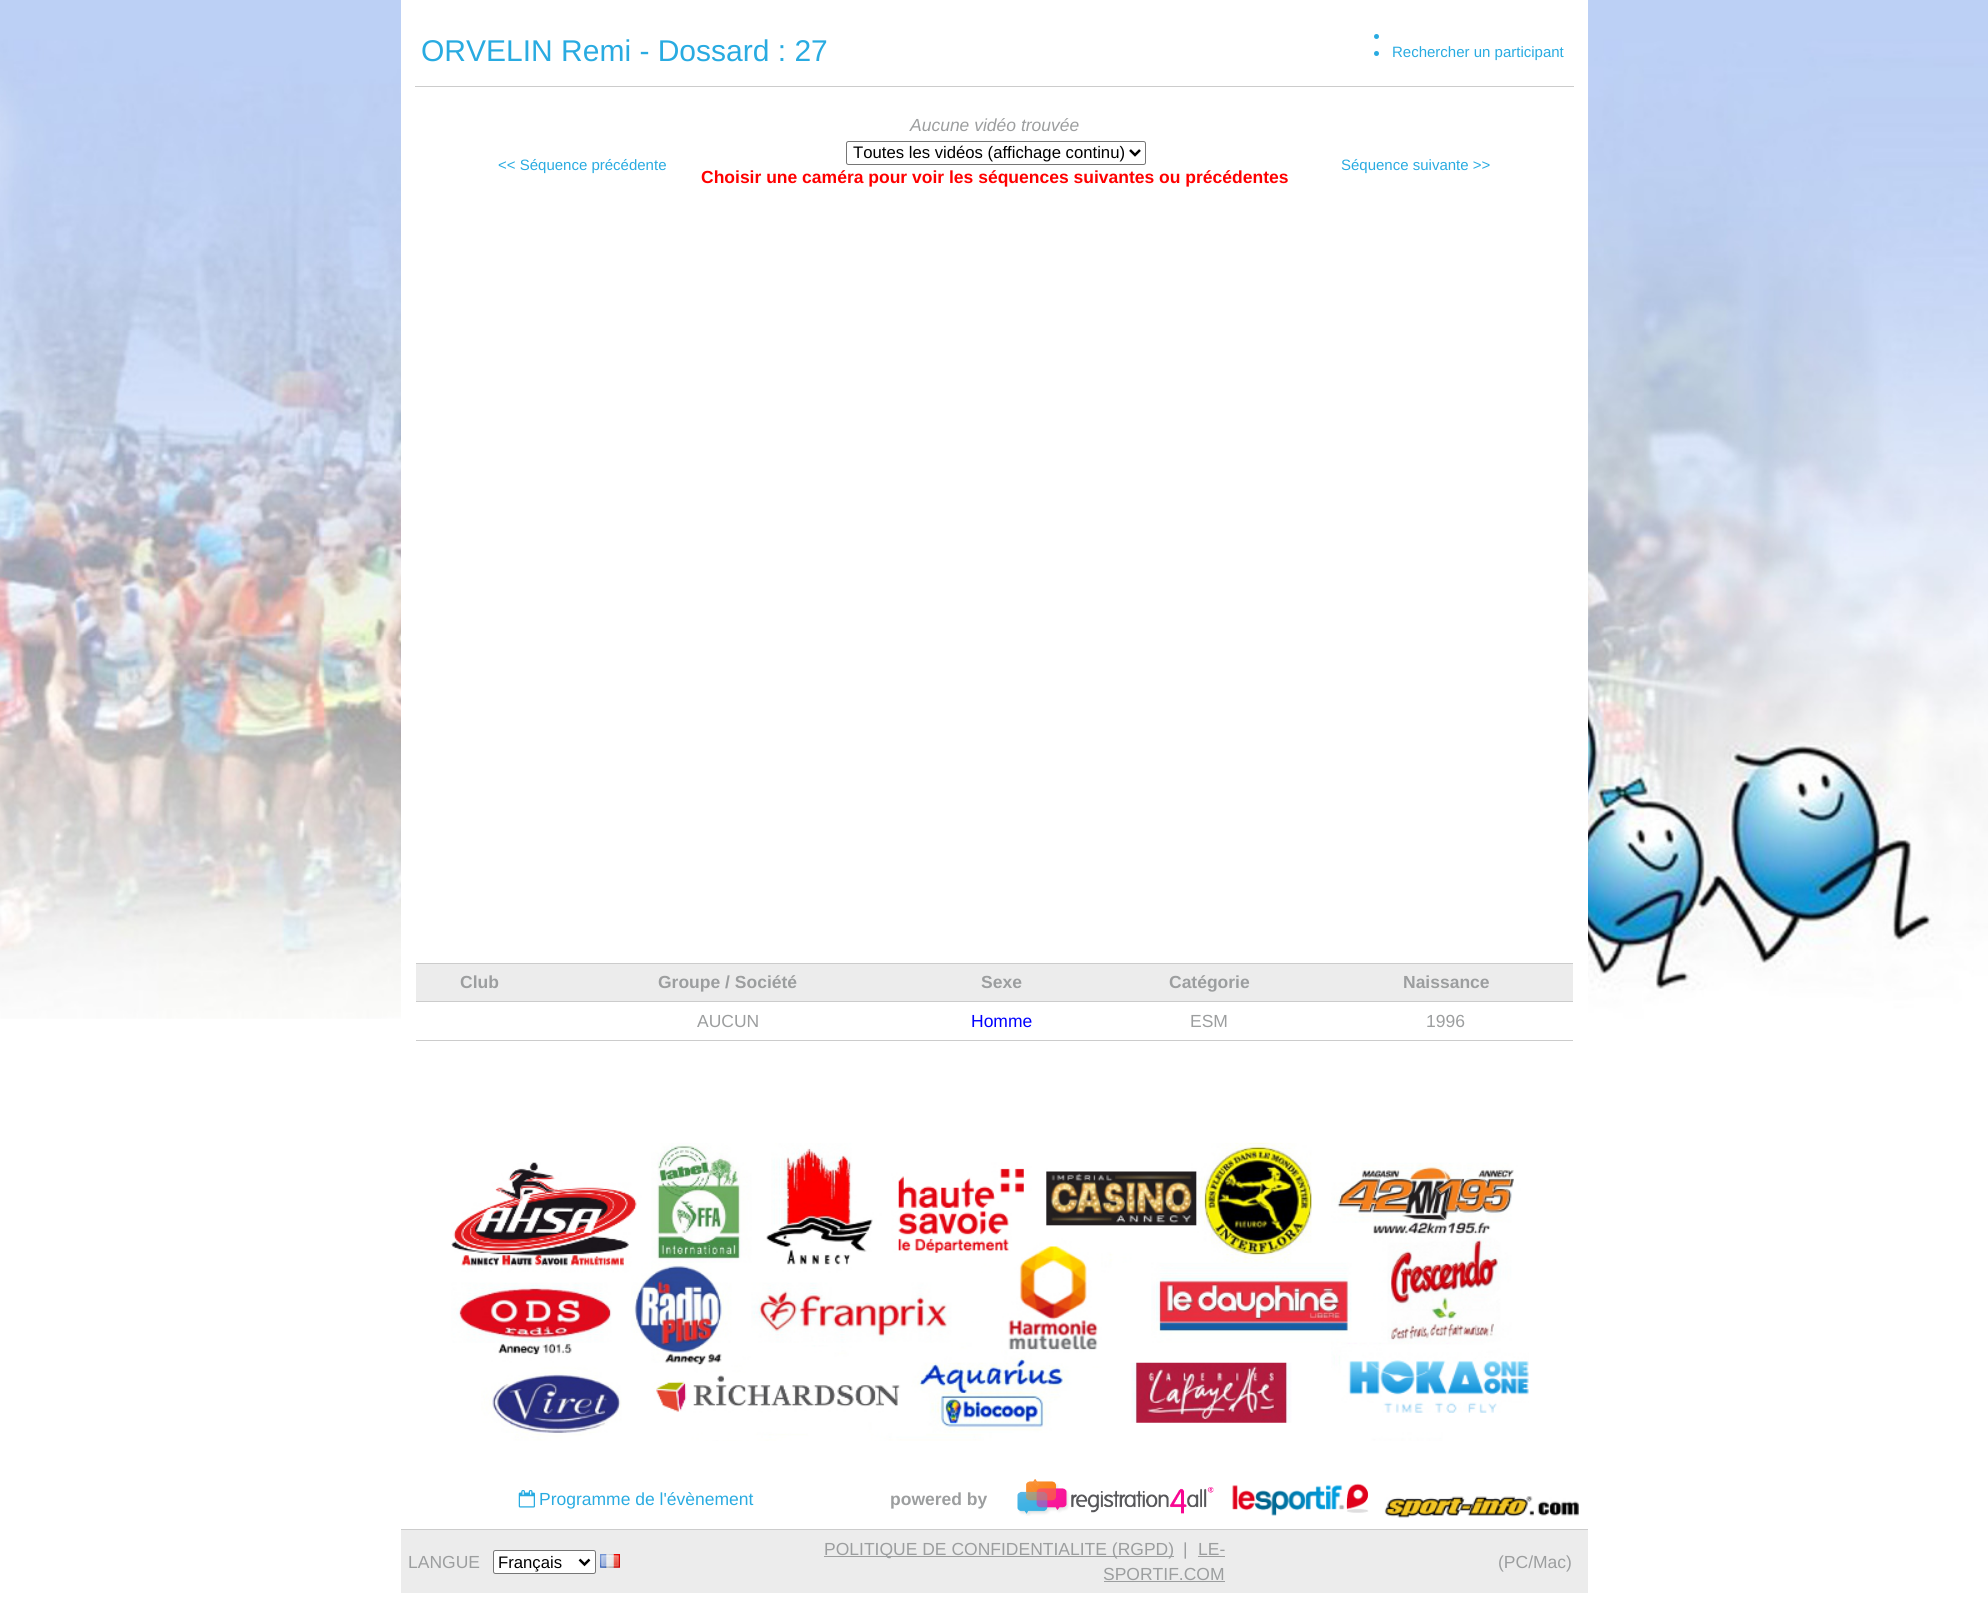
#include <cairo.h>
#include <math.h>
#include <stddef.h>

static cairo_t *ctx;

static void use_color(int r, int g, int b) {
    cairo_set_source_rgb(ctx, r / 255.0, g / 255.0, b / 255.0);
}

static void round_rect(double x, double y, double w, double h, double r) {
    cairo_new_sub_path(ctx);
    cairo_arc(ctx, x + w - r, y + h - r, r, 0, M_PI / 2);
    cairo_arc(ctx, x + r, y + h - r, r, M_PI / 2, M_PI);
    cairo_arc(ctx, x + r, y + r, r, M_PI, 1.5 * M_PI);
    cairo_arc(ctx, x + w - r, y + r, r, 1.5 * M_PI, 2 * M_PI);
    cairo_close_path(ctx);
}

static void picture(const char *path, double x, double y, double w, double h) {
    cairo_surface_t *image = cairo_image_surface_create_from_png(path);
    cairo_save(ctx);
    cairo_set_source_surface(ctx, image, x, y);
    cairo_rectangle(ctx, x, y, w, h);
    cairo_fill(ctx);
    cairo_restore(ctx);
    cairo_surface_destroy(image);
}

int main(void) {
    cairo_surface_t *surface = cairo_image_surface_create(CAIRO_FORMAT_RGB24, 1988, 1600);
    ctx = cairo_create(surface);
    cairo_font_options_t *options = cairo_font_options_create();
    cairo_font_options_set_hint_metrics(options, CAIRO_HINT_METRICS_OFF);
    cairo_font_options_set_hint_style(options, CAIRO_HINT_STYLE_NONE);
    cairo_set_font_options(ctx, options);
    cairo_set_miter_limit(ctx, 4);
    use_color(255, 255, 255);
    cairo_paint(ctx);
    picture("img1.png", 0, 0, 1988, 1019);
    use_color(255, 255, 255);
    cairo_rectangle(ctx, 401, 0, 1187, 1019);
    cairo_fill(ctx);
    use_color(204, 204, 204);
    cairo_rectangle(ctx, 415, 86, 1159, 1);
    cairo_fill(ctx);
    cairo_select_font_face(ctx, "Liberation Sans", CAIRO_FONT_SLANT_NORMAL, CAIRO_FONT_WEIGHT_NORMAL);
    cairo_set_font_size(ctx, 30);
    use_color(41, 171, 225);
    cairo_move_to(ctx, 421, 61);
    cairo_show_text(ctx, "ORVELIN Remi - Dossard : 27");
    cairo_new_path(ctx);
    cairo_arc(ctx, 1376.5, 36.5, 2.5, 0, 2 * M_PI);
    cairo_fill(ctx);
    cairo_arc(ctx, 1376.5, 53.5, 2.5, 0, 2 * M_PI);
    cairo_fill(ctx);
    cairo_set_font_size(ctx, 15);
    cairo_move_to(ctx, 1392, 57);
    cairo_show_text(ctx, "Rechercher un participant");
    cairo_select_font_face(ctx, "Liberation Sans", CAIRO_FONT_SLANT_ITALIC, CAIRO_FONT_WEIGHT_NORMAL);
    cairo_set_font_size(ctx, 17.5);
    use_color(156, 158, 159);
    cairo_move_to(ctx, 910, 131);
    cairo_show_text(ctx, "Aucune vidéo trouvée");
    cairo_select_font_face(ctx, "Liberation Sans", CAIRO_FONT_SLANT_NORMAL, CAIRO_FONT_WEIGHT_NORMAL);
    cairo_set_font_size(ctx, 15);
    use_color(41, 171, 225);
    cairo_move_to(ctx, 498, 170);
    cairo_show_text(ctx, "<< Séquence précédente");
    round_rect(846.5, 141.5, 299, 23, 2);
    use_color(118, 118, 118);
    cairo_set_line_width(ctx, 1);
    cairo_stroke(ctx);
    cairo_new_path(ctx);
    cairo_move_to(ctx, 1130, 150);
    cairo_line_to(ctx, 1135, 155);
    cairo_line_to(ctx, 1140, 150);
    use_color(0, 0, 0);
    cairo_set_line_width(ctx, 2.5);
    cairo_stroke(ctx);
    cairo_set_font_size(ctx, 16.7);
    cairo_move_to(ctx, 853, 158);
    cairo_show_text(ctx, "Toutes les vidéos (affichage continu)");
    cairo_select_font_face(ctx, "Liberation Sans", CAIRO_FONT_SLANT_NORMAL, CAIRO_FONT_WEIGHT_BOLD);
    cairo_set_font_size(ctx, 17.5);
    use_color(255, 0, 0);
    cairo_move_to(ctx, 701, 183);
    cairo_show_text(ctx, "Choisir une caméra pour voir les séquences suivantes ou précédentes");
    cairo_select_font_face(ctx, "Liberation Sans", CAIRO_FONT_SLANT_NORMAL, CAIRO_FONT_WEIGHT_NORMAL);
    cairo_set_font_size(ctx, 15);
    use_color(41, 171, 225);
    cairo_move_to(ctx, 1341, 170);
    cairo_show_text(ctx, "Séquence suivante >>");
    use_color(236, 236, 236);
    cairo_rectangle(ctx, 416, 964, 1157, 37);
    cairo_fill(ctx);
    use_color(204, 204, 204);
    cairo_rectangle(ctx, 416, 963, 1157, 1);
    cairo_fill(ctx);
    cairo_select_font_face(ctx, "Liberation Sans", CAIRO_FONT_SLANT_NORMAL, CAIRO_FONT_WEIGHT_BOLD);
    cairo_set_font_size(ctx, 17.5);
    use_color(156, 158, 159);
    cairo_move_to(ctx, 460, 988);
    cairo_show_text(ctx, "Club");
    cairo_move_to(ctx, 658, 988);
    cairo_show_text(ctx, "Groupe / Société");
    cairo_move_to(ctx, 981, 988);
    cairo_show_text(ctx, "Sexe");
    cairo_move_to(ctx, 1169, 988);
    cairo_show_text(ctx, "Catégorie");
    cairo_move_to(ctx, 1403, 988);
    cairo_show_text(ctx, "Naissance");
    use_color(204, 204, 204);
    cairo_rectangle(ctx, 416, 1001, 1157, 1);
    cairo_fill(ctx);
    cairo_rectangle(ctx, 416, 1040, 1157, 1);
    cairo_fill(ctx);
    cairo_select_font_face(ctx, "Liberation Sans", CAIRO_FONT_SLANT_NORMAL, CAIRO_FONT_WEIGHT_NORMAL);
    use_color(156, 158, 159);
    cairo_move_to(ctx, 697, 1027);
    cairo_show_text(ctx, "AUCUN");
    use_color(0, 0, 255);
    cairo_move_to(ctx, 971, 1027);
    cairo_show_text(ctx, "Homme");
    use_color(156, 158, 159);
    cairo_move_to(ctx, 1190, 1027);
    cairo_show_text(ctx, "ESM");
    cairo_move_to(ctx, 1426, 1027);
    cairo_show_text(ctx, "1996");
    picture("img2.png", 451, 1142, 1078, 299);
    picture("img3.png", 518, 1490, 17, 18);
    use_color(41, 171, 225);
    cairo_move_to(ctx, 539, 1505);
    cairo_show_text(ctx, "Programme de l'évènement");
    cairo_select_font_face(ctx, "Liberation Sans", CAIRO_FONT_SLANT_NORMAL, CAIRO_FONT_WEIGHT_BOLD);
    use_color(156, 158, 159);
    cairo_move_to(ctx, 890, 1505);
    cairo_show_text(ctx, "powered by");
    picture("img4.png", 1017, 1479, 197, 37);
    picture("img5.png", 1232, 1483, 137, 33);
    picture("img6.png", 1384, 1496, 195, 22);
    use_color(236, 236, 236);
    cairo_rectangle(ctx, 401, 1530, 1187, 63);
    cairo_fill(ctx);
    use_color(204, 204, 204);
    cairo_rectangle(ctx, 401, 1529, 1187, 1);
    cairo_fill(ctx);
    cairo_select_font_face(ctx, "Liberation Sans", CAIRO_FONT_SLANT_NORMAL, CAIRO_FONT_WEIGHT_NORMAL);
    use_color(156, 158, 159);
    cairo_move_to(ctx, 408, 1568);
    cairo_show_text(ctx, "LANGUE");
    use_color(255, 255, 255);
    round_rect(493.5, 1550.5, 102, 23, 2);
    cairo_fill_preserve(ctx);
    use_color(118, 118, 118);
    cairo_set_line_width(ctx, 1);
    cairo_stroke(ctx);
    cairo_new_path(ctx);
    cairo_move_to(ctx, 579.5, 1559.5);
    cairo_line_to(ctx, 584.5, 1564.5);
    cairo_line_to(ctx, 589.5, 1559.5);
    use_color(0, 0, 0);
    cairo_set_line_width(ctx, 2.5);
    cairo_stroke(ctx);
    cairo_set_font_size(ctx, 16.7);
    cairo_move_to(ctx, 498, 1568);
    cairo_show_text(ctx, "Français");
    picture("img7.png", 600, 1554, 20, 14);
    use_color(156, 158, 159);
    cairo_rectangle(ctx, 824, 1556, 350, 1);
    cairo_fill(ctx);
    cairo_set_font_size(ctx, 17.5);
    cairo_move_to(ctx, 824, 1555);
    cairo_show_text(ctx, "POLITIQUE DE CONFIDENTIALITE (RGPD)");
    cairo_move_to(ctx, 1183, 1555);
    cairo_show_text(ctx, "|");
    cairo_move_to(ctx, 1198, 1555);
    cairo_show_text(ctx, "LE-");
    cairo_rectangle(ctx, 1198, 1556, 27, 1);
    cairo_fill(ctx);
    cairo_move_to(ctx, 1103, 1580);
    cairo_show_text(ctx, "SPORTIF.COM");
    cairo_rectangle(ctx, 1104, 1581, 121, 1);
    cairo_fill(ctx);
    cairo_move_to(ctx, 1498, 1568);
    cairo_show_text(ctx, "(PC/Mac)");
    cairo_surface_write_to_png(surface, "result.png");
    cairo_font_options_destroy(options);
    cairo_destroy(ctx);
    cairo_surface_destroy(surface);
    return 0;
}
